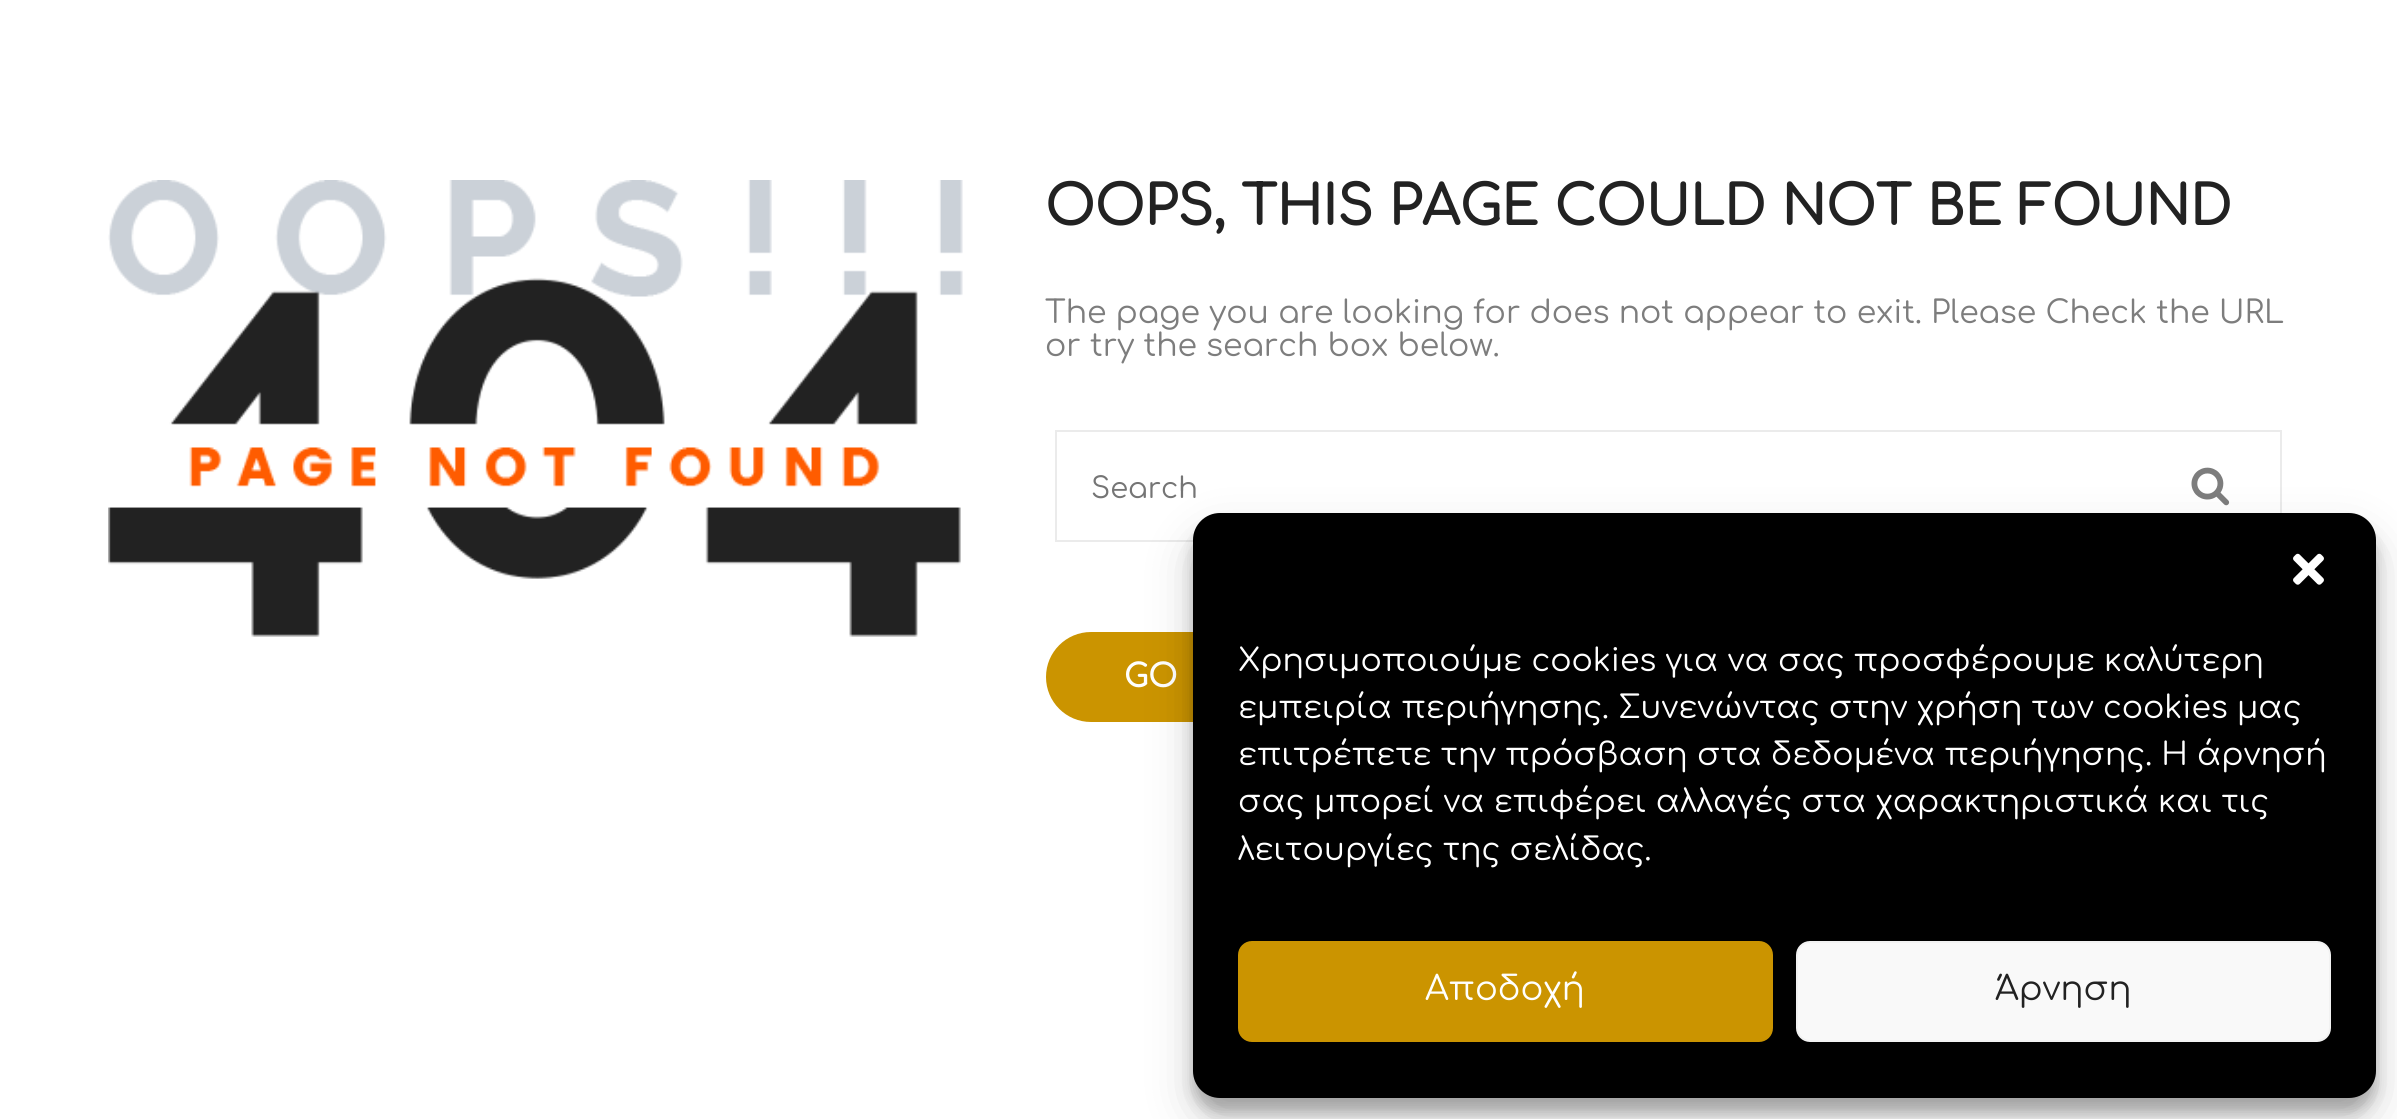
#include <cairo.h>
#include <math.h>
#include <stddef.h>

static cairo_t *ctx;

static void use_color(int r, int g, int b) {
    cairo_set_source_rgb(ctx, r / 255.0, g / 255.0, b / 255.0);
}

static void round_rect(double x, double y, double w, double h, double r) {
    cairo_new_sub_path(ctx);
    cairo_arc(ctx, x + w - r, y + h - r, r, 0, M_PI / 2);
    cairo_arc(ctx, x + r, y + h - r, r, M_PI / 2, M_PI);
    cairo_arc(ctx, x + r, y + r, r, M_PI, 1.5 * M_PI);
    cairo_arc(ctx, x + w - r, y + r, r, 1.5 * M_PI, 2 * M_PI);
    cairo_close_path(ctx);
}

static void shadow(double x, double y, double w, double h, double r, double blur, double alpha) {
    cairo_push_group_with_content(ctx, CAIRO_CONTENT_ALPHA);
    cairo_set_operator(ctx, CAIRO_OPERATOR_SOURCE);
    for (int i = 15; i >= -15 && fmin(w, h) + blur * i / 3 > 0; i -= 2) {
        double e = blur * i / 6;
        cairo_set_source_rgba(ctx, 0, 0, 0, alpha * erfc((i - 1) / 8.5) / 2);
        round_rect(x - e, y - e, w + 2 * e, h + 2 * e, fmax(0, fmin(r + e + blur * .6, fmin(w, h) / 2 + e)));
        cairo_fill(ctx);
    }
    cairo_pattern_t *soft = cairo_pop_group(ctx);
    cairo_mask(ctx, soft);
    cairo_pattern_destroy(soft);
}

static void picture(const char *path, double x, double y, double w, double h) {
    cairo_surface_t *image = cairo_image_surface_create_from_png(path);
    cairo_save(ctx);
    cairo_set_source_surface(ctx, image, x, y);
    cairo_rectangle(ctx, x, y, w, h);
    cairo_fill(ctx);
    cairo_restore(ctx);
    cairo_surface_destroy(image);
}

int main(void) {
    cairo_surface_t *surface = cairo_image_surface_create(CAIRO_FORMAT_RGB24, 2397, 1119);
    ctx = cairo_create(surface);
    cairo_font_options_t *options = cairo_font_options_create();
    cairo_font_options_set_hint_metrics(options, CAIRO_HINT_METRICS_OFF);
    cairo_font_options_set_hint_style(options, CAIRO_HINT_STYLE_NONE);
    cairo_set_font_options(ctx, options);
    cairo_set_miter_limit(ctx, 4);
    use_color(255, 255, 255);
    cairo_paint(ctx);
    picture("img1.png", 108, 180, 855, 457);
    cairo_select_font_face(ctx, "Comfortaa", CAIRO_FONT_SLANT_NORMAL, CAIRO_FONT_WEIGHT_BOLD);
    cairo_set_font_size(ctx, 54);
    use_color(34, 34, 34);
    cairo_move_to(ctx, 1045, 225);
    cairo_show_text(ctx, "OOPS, THIS PAGE COULD NOT BE FOUND");
    cairo_select_font_face(ctx, "Comfortaa", CAIRO_FONT_SLANT_NORMAL, CAIRO_FONT_WEIGHT_NORMAL);
    cairo_set_font_size(ctx, 31.5);
    use_color(125, 125, 125);
    cairo_move_to(ctx, 1045, 323);
    cairo_show_text(ctx, "The page you are looking for does not appear to exit. Please Check the URL");
    cairo_move_to(ctx, 1045, 356);
    cairo_show_text(ctx, "or try the search box below.");
    cairo_rectangle(ctx, 1056, 431, 1225, 110);
    use_color(235, 235, 235);
    cairo_stroke(ctx);
    cairo_set_font_size(ctx, 29);
    use_color(117, 117, 117);
    cairo_move_to(ctx, 1091, 498);
    cairo_show_text(ctx, "Search");
    picture("img2.png", 2191, 467, 39, 39);
    use_color(203, 148, 0);
    round_rect(1046, 632, 329, 90, 45);
    cairo_fill(ctx);
    cairo_select_font_face(ctx, "Comfortaa", CAIRO_FONT_SLANT_NORMAL, CAIRO_FONT_WEIGHT_BOLD);
    cairo_set_font_size(ctx, 31.5);
    use_color(255, 255, 255);
    cairo_move_to(ctx, 1124, 687);
    cairo_show_text(ctx, "GO");
    use_color(0, 0, 0);
    shadow(1193, 527, 1183, 585, 27, 7, 0.23);
    shadow(1193, 536, 1183, 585, 27, 22.5, 0.19);
    use_color(0, 0, 0);
    round_rect(1193, 513, 1183, 585, 27);
    cairo_fill(ctx);
    picture("img3.png", 2293, 553, 31, 32);
    cairo_select_font_face(ctx, "Comfortaa", CAIRO_FONT_SLANT_NORMAL, CAIRO_FONT_WEIGHT_NORMAL);
    use_color(255, 255, 255);
    cairo_move_to(ctx, 1238, 671);
    cairo_show_text(ctx, "Χρησιμοποιούμε cookies για να σας προσφέρουμε καλύτερη");
    cairo_move_to(ctx, 1238, 718);
    cairo_show_text(ctx, "εμπειρία περιήγησης. Συνενώντας στην χρήση των cookies μας");
    cairo_move_to(ctx, 1238, 765);
    cairo_show_text(ctx, "επιτρέπετε την πρόσβαση στα δεδομένα περιήγησης. Η άρνησή");
    cairo_move_to(ctx, 1238, 812);
    cairo_show_text(ctx, "σας μπορεί να επιφέρει αλλαγές στα χαρακτηριστικά και τις");
    cairo_move_to(ctx, 1238, 860);
    cairo_show_text(ctx, "λειτουργίες της σελίδας.");
    use_color(203, 148, 0);
    round_rect(1239, 942, 533, 99, 13);
    cairo_fill_preserve(ctx);
    cairo_stroke(ctx);
    cairo_set_font_size(ctx, 33.75);
    use_color(255, 255, 255);
    cairo_move_to(ctx, 1425, 1000);
    cairo_show_text(ctx, "Αποδοχή");
    use_color(249, 249, 249);
    round_rect(1797, 942, 533, 99, 13);
    cairo_fill_preserve(ctx);
    use_color(242, 242, 242);
    cairo_stroke(ctx);
    use_color(34, 34, 34);
    cairo_move_to(ctx, 1995, 1000);
    cairo_show_text(ctx, "Άρνηση");
    cairo_surface_write_to_png(surface, "result.png");
    cairo_font_options_destroy(options);
    cairo_destroy(ctx);
    cairo_surface_destroy(surface);
    return 0;
}
